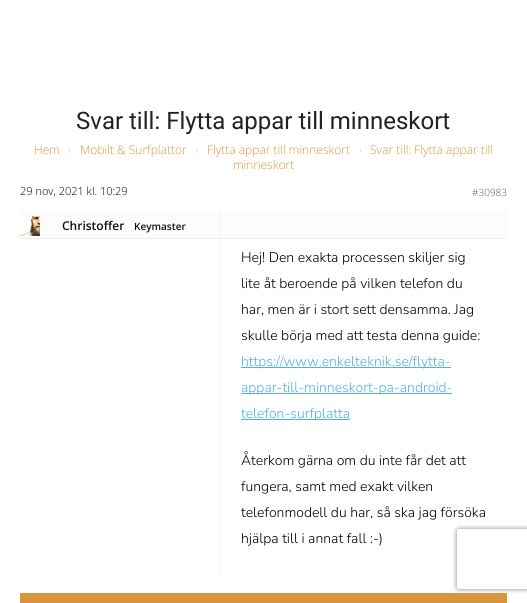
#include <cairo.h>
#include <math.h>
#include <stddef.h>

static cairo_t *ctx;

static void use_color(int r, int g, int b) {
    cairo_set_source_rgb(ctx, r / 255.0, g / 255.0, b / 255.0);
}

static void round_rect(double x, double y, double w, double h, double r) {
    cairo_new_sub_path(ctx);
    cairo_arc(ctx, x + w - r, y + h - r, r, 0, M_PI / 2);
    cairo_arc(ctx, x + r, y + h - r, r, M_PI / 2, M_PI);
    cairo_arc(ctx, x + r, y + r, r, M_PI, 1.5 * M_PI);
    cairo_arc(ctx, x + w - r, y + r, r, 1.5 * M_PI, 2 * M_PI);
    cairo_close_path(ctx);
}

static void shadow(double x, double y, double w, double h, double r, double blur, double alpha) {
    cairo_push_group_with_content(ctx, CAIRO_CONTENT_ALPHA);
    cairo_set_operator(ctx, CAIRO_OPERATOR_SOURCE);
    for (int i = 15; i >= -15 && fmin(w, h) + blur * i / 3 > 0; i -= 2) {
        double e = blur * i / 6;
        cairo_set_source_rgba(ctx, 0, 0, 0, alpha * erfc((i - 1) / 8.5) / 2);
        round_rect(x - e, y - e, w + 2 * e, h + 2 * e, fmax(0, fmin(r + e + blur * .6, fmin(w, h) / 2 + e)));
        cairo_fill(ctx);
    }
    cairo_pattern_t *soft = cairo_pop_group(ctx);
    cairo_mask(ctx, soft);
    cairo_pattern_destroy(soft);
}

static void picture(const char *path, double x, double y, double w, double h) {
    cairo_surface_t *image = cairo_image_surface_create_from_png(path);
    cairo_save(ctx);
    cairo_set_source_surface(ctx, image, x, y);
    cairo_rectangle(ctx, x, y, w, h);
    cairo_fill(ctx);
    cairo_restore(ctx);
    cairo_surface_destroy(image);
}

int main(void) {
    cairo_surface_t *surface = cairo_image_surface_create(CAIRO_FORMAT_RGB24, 527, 603);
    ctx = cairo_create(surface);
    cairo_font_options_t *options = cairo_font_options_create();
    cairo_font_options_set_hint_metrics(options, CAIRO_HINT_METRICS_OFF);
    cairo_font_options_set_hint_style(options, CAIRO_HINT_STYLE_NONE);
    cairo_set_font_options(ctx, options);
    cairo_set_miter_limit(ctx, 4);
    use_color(255, 255, 255);
    cairo_paint(ctx);
    cairo_select_font_face(ctx, "Roboto", CAIRO_FONT_SLANT_NORMAL, CAIRO_FONT_WEIGHT_NORMAL);
    cairo_set_font_size(ctx, 24);
    use_color(34, 34, 34);
    cairo_move_to(ctx, 76, 129);
    cairo_show_text(ctx, "Svar till: Flytta appar till minneskort");
    cairo_select_font_face(ctx, "Open Sans Light", CAIRO_FONT_SLANT_NORMAL, CAIRO_FONT_WEIGHT_NORMAL);
    cairo_set_font_size(ctx, 12);
    use_color(216, 149, 60);
    cairo_move_to(ctx, 34, 154);
    cairo_show_text(ctx, "Hem");
    use_color(195, 195, 195);
    cairo_move_to(ctx, 68, 154);
    cairo_show_text(ctx, "›");
    use_color(216, 149, 60);
    cairo_move_to(ctx, 80, 154);
    cairo_show_text(ctx, "Mobilt & Surfplattor");
    use_color(195, 195, 195);
    cairo_move_to(ctx, 195, 154);
    cairo_show_text(ctx, "›");
    use_color(216, 149, 60);
    cairo_move_to(ctx, 207, 154);
    cairo_show_text(ctx, "Flytta appar till minneskort");
    use_color(195, 195, 195);
    cairo_move_to(ctx, 359, 154);
    cairo_show_text(ctx, "›");
    use_color(216, 149, 60);
    cairo_move_to(ctx, 370, 154);
    cairo_show_text(ctx, "Svar till: Flytta appar till");
    cairo_move_to(ctx, 233, 169);
    cairo_show_text(ctx, "minneskort");
    cairo_set_font_size(ctx, 11);
    use_color(0, 0, 0);
    cairo_move_to(ctx, 20, 195);
    cairo_show_text(ctx, "29 nov, 2021 kl. 10:29");
    cairo_set_font_size(ctx, 10);
    use_color(85, 85, 85);
    cairo_move_to(ctx, 472, 196);
    cairo_show_text(ctx, "#30983");
    use_color(252, 252, 252);
    cairo_rectangle(ctx, 20, 210, 487, 28);
    cairo_fill(ctx);
    use_color(237, 237, 237);
    cairo_rectangle(ctx, 20, 238, 487, 1);
    cairo_fill(ctx);
    picture("img1.png", 20, 216, 20, 20);
    cairo_select_font_face(ctx, "Open Sans SemiBold", CAIRO_FONT_SLANT_NORMAL, CAIRO_FONT_WEIGHT_NORMAL);
    cairo_set_font_size(ctx, 12);
    use_color(17, 17, 17);
    cairo_move_to(ctx, 62, 230);
    cairo_show_text(ctx, "Christoffer");
    cairo_set_font_size(ctx, 10);
    cairo_move_to(ctx, 134, 230);
    cairo_show_text(ctx, "Keymaster");
    use_color(243, 243, 243);
    cairo_rectangle(ctx, 220, 210, 1, 363);
    cairo_fill(ctx);
    cairo_select_font_face(ctx, "Nunito Light", CAIRO_FONT_SLANT_NORMAL, CAIRO_FONT_WEIGHT_NORMAL);
    cairo_set_font_size(ctx, 14);
    use_color(0, 0, 0);
    cairo_move_to(ctx, 241, 262);
    cairo_show_text(ctx, "Hej! Den exakta processen skiljer sig");
    cairo_move_to(ctx, 241, 288);
    cairo_show_text(ctx, "lite åt beroende på vilken telefon du");
    cairo_move_to(ctx, 241, 314);
    cairo_show_text(ctx, "har, men är i stort sett densamma. Jag");
    cairo_move_to(ctx, 241, 340);
    cairo_show_text(ctx, "skulle börja med att testa denna guide:");
    use_color(77, 178, 236);
    cairo_rectangle(ctx, 241, 367, 210, 1);
    cairo_fill(ctx);
    cairo_move_to(ctx, 241, 366);
    cairo_show_text(ctx, "https://www.enkelteknik.se/flytta-");
    cairo_rectangle(ctx, 241, 393, 211, 1);
    cairo_fill(ctx);
    cairo_move_to(ctx, 241, 392);
    cairo_show_text(ctx, "appar-till-minneskort-pa-android-");
    cairo_rectangle(ctx, 241, 419, 109, 1);
    cairo_fill(ctx);
    cairo_move_to(ctx, 241, 418);
    cairo_show_text(ctx, "telefon-surfplatta");
    use_color(0, 0, 0);
    cairo_move_to(ctx, 241, 465);
    cairo_show_text(ctx, "Återkom gärna om du inte får det att");
    cairo_move_to(ctx, 241, 491);
    cairo_show_text(ctx, "fungera, samt med exakt vilken");
    cairo_move_to(ctx, 241, 517);
    cairo_show_text(ctx, "telefonmodell du har, så ska jag försöka");
    cairo_move_to(ctx, 241, 543);
    cairo_show_text(ctx, "hjälpa till i annat fall :-)");
    use_color(216, 149, 60);
    cairo_rectangle(ctx, 20, 593, 487, 10);
    cairo_fill(ctx);
    cairo_save(ctx);
    cairo_set_fill_rule(ctx, CAIRO_FILL_RULE_EVEN_ODD);
    cairo_new_path(ctx);
    cairo_move_to(ctx, 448, 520);
    cairo_line_to(ctx, 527, 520);
    cairo_line_to(ctx, 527, 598);
    cairo_line_to(ctx, 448, 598);
    cairo_close_path(ctx);
    cairo_move_to(ctx, 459, 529);
    cairo_line_to(ctx, 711, 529);
    cairo_curve_to(ctx, 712, 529, 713, 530, 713, 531);
    cairo_line_to(ctx, 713, 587);
    cairo_curve_to(ctx, 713, 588, 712, 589, 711, 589);
    cairo_line_to(ctx, 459, 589);
    cairo_curve_to(ctx, 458, 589, 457, 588, 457, 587);
    cairo_line_to(ctx, 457, 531);
    cairo_curve_to(ctx, 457, 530, 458, 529, 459, 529);
    cairo_close_path(ctx);
    cairo_clip(ctx);
    use_color(128, 128, 128);
    shadow(457, 529, 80, 60, 2, 2.5, 1);
    cairo_restore(ctx);
    cairo_surface_write_to_png(surface, "result.png");
    cairo_font_options_destroy(options);
    cairo_destroy(ctx);
    cairo_surface_destroy(surface);
    return 0;
}
